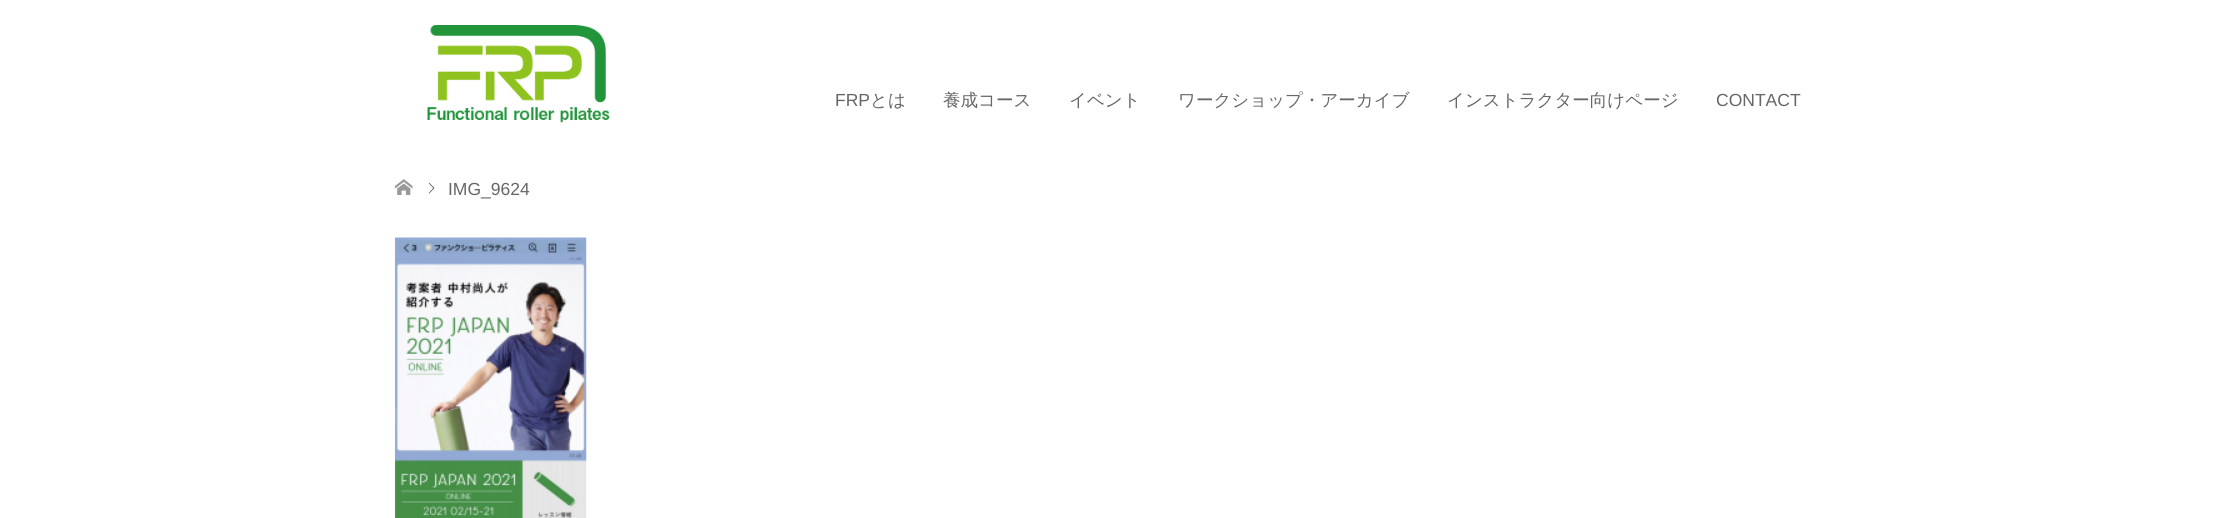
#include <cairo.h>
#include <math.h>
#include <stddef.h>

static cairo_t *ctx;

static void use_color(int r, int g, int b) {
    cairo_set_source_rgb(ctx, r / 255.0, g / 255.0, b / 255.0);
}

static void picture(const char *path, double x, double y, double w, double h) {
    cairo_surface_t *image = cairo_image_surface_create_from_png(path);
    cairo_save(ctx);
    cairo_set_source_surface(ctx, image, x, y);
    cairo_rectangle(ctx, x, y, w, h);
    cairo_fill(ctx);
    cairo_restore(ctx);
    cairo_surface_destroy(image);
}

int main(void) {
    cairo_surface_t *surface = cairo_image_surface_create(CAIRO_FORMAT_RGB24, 2226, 518);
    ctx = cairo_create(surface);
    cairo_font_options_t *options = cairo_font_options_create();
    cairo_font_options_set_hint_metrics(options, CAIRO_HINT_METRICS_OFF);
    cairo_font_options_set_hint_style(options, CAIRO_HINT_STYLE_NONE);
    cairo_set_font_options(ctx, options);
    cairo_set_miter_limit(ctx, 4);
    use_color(255, 255, 255);
    cairo_paint(ctx);
    picture("img1.png", 427, 25, 183, 98);
    cairo_select_font_face(ctx, "Liberation Sans", CAIRO_FONT_SLANT_NORMAL, CAIRO_FONT_WEIGHT_NORMAL);
    cairo_set_font_size(ctx, 17.5);
    use_color(102, 102, 102);
    cairo_move_to(ctx, 835, 106);
    cairo_show_text(ctx, "FRP");
    cairo_select_font_face(ctx, "WenQuanYi Zen Hei Medium", CAIRO_FONT_SLANT_NORMAL, CAIRO_FONT_WEIGHT_NORMAL);
    cairo_move_to(ctx, 870, 106);
    cairo_show_text(ctx, "とは");
    cairo_move_to(ctx, 943, 106);
    cairo_show_text(ctx, "養成コース");
    cairo_move_to(ctx, 1069, 106);
    cairo_show_text(ctx, "イベント");
    cairo_move_to(ctx, 1178, 106);
    cairo_show_text(ctx, "ワークショップ・アーカイブ");
    cairo_move_to(ctx, 1447, 106);
    cairo_show_text(ctx, "インストラクター向けページ");
    cairo_select_font_face(ctx, "Liberation Sans", CAIRO_FONT_SLANT_NORMAL, CAIRO_FONT_WEIGHT_NORMAL);
    cairo_move_to(ctx, 1716, 106);
    cairo_show_text(ctx, "CONTACT");
    picture("img2.png", 395, 179, 18, 16);
    picture("img3.png", 428, 182, 7, 12);
    cairo_move_to(ctx, 448, 195);
    cairo_show_text(ctx, "IMG_9624");
    picture("img4.png", 395, 237, 192, 281);
    cairo_surface_write_to_png(surface, "result.png");
    cairo_font_options_destroy(options);
    cairo_destroy(ctx);
    cairo_surface_destroy(surface);
    return 0;
}
